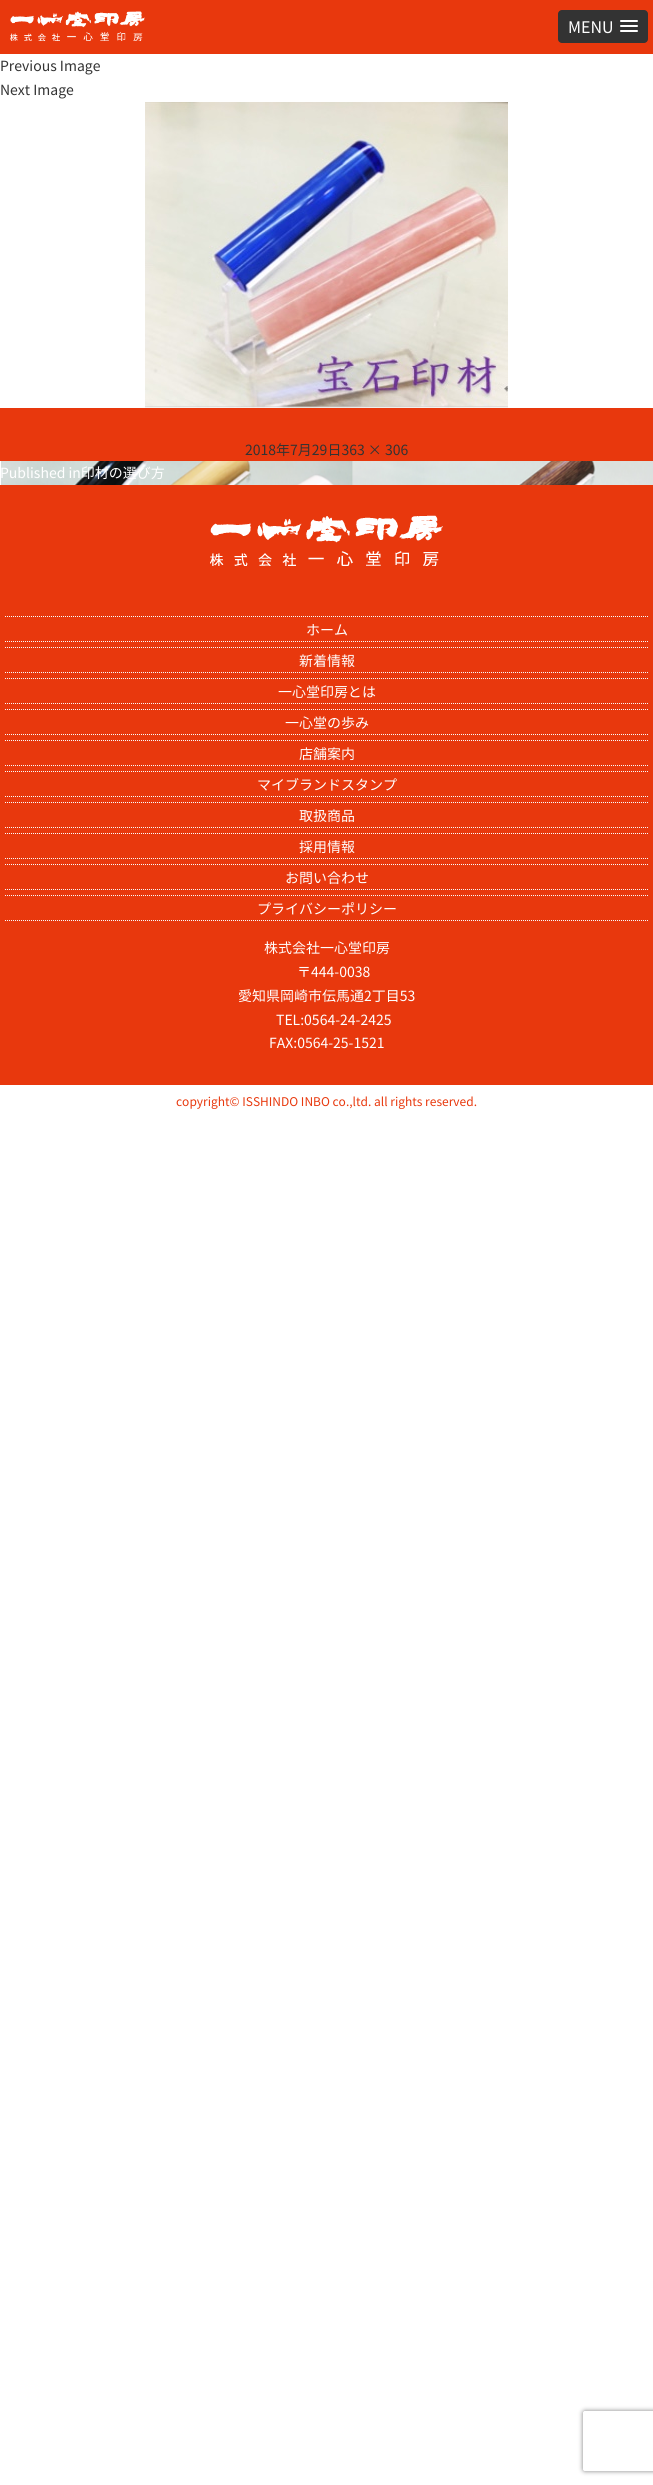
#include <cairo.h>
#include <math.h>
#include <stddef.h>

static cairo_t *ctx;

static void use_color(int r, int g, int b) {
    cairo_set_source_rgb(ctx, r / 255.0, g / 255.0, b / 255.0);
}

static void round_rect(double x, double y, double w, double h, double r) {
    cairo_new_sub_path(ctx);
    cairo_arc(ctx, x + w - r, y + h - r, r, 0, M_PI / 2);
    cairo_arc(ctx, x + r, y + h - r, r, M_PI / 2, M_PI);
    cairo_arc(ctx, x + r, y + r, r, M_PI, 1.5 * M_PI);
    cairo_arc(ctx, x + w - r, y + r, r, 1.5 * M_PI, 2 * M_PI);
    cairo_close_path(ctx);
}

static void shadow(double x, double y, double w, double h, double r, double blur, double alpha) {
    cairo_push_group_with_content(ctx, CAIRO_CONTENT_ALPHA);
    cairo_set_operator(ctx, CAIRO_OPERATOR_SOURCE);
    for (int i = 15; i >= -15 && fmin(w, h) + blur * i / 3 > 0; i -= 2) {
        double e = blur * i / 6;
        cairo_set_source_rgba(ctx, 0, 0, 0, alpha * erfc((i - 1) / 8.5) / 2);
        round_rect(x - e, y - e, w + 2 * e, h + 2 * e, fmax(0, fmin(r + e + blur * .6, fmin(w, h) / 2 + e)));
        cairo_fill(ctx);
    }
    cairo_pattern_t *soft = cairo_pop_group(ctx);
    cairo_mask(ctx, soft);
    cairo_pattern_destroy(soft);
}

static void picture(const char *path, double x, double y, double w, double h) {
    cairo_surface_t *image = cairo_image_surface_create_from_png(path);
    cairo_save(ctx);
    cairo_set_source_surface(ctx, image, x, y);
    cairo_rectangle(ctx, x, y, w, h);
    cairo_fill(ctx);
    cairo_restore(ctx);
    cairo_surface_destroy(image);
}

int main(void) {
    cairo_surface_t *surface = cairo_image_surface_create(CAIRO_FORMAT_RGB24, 653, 2485);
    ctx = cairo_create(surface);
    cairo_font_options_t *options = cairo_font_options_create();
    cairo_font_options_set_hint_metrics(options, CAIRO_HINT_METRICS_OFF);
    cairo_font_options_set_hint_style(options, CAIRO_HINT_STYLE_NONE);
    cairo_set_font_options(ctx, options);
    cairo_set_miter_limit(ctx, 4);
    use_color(255, 255, 255);
    cairo_paint(ctx);
    use_color(232, 56, 13);
    cairo_rectangle(ctx, 0, 0, 653, 54);
    cairo_fill(ctx);
    picture("img1.png", 10, 11, 135, 30);
    use_color(51, 51, 51);
    round_rect(558, 10, 90, 33, 4);
    cairo_fill(ctx);
    cairo_select_font_face(ctx, "Noto Sans JP", CAIRO_FONT_SLANT_NORMAL, CAIRO_FONT_WEIGHT_NORMAL);
    cairo_set_font_size(ctx, 16);
    use_color(255, 255, 255);
    cairo_move_to(ctx, 568, 33);
    cairo_show_text(ctx, "MENU");
    round_rect(620, 20, 18, 2, 1);
    cairo_fill(ctx);
    round_rect(620, 25, 18, 2, 1);
    cairo_fill(ctx);
    round_rect(620, 30, 18, 2, 1);
    cairo_fill(ctx);
    cairo_set_font_size(ctx, 14);
    use_color(51, 51, 51);
    cairo_move_to(ctx, 0, 71);
    cairo_show_text(ctx, "Previous Image");
    cairo_move_to(ctx, 0, 95);
    cairo_show_text(ctx, "Next Image");
    picture("img2.png", 145, 102, 363, 306);
    use_color(232, 56, 13);
    cairo_rectangle(ctx, 0, 408, 653, 53);
    cairo_fill(ctx);
    use_color(51, 51, 51);
    cairo_move_to(ctx, 245, 455);
    cairo_show_text(ctx, "2018年7月29日363 × 306");
    picture("img3.png", 1, 461, 652, 24);
    use_color(255, 255, 255);
    cairo_move_to(ctx, 0, 478);
    cairo_show_text(ctx, "Published in印材の選び方");
    use_color(232, 56, 13);
    cairo_rectangle(ctx, 0, 485, 653, 600);
    cairo_fill(ctx);
    picture("img4.png", 210, 515, 233, 51);
    cairo_new_path(ctx);
    cairo_move_to(ctx, 5, 616.5);
    cairo_line_to(ctx, 648, 616.5);
    use_color(247, 252, 255);
    cairo_set_line_width(ctx, 1);
    cairo_set_dash(ctx, (double[]){1, 1}, 2, 0);
    cairo_stroke(ctx);
    cairo_new_path(ctx);
    cairo_move_to(ctx, 5, 641.5);
    cairo_line_to(ctx, 648, 641.5);
    cairo_stroke(ctx);
    use_color(255, 255, 255);
    cairo_move_to(ctx, 306, 635);
    cairo_show_text(ctx, "ホーム");
    cairo_new_path(ctx);
    cairo_move_to(ctx, 5, 647.5);
    cairo_line_to(ctx, 648, 647.5);
    use_color(247, 252, 255);
    cairo_stroke(ctx);
    cairo_new_path(ctx);
    cairo_move_to(ctx, 5, 672.5);
    cairo_line_to(ctx, 648, 672.5);
    cairo_stroke(ctx);
    use_color(255, 255, 255);
    cairo_move_to(ctx, 299, 666);
    cairo_show_text(ctx, "新着情報");
    cairo_new_path(ctx);
    cairo_move_to(ctx, 5, 678.5);
    cairo_line_to(ctx, 648, 678.5);
    use_color(247, 252, 255);
    cairo_stroke(ctx);
    cairo_new_path(ctx);
    cairo_move_to(ctx, 5, 703.5);
    cairo_line_to(ctx, 648, 703.5);
    cairo_stroke(ctx);
    use_color(255, 255, 255);
    cairo_move_to(ctx, 278, 697);
    cairo_show_text(ctx, "一心堂印房とは");
    cairo_new_path(ctx);
    cairo_move_to(ctx, 5, 709.5);
    cairo_line_to(ctx, 648, 709.5);
    use_color(247, 252, 255);
    cairo_stroke(ctx);
    cairo_new_path(ctx);
    cairo_move_to(ctx, 5, 734.5);
    cairo_line_to(ctx, 648, 734.5);
    cairo_stroke(ctx);
    use_color(255, 255, 255);
    cairo_move_to(ctx, 285, 728);
    cairo_show_text(ctx, "一心堂の歩み");
    cairo_new_path(ctx);
    cairo_move_to(ctx, 5, 740.5);
    cairo_line_to(ctx, 648, 740.5);
    use_color(247, 252, 255);
    cairo_stroke(ctx);
    cairo_new_path(ctx);
    cairo_move_to(ctx, 5, 765.5);
    cairo_line_to(ctx, 648, 765.5);
    cairo_stroke(ctx);
    use_color(255, 255, 255);
    cairo_move_to(ctx, 299, 759);
    cairo_show_text(ctx, "店舗案内");
    cairo_new_path(ctx);
    cairo_move_to(ctx, 5, 771.5);
    cairo_line_to(ctx, 648, 771.5);
    use_color(247, 252, 255);
    cairo_stroke(ctx);
    cairo_new_path(ctx);
    cairo_move_to(ctx, 5, 796.5);
    cairo_line_to(ctx, 648, 796.5);
    cairo_stroke(ctx);
    use_color(255, 255, 255);
    cairo_move_to(ctx, 257, 790);
    cairo_show_text(ctx, "マイブランドスタンプ");
    cairo_new_path(ctx);
    cairo_move_to(ctx, 5, 802.5);
    cairo_line_to(ctx, 648, 802.5);
    use_color(247, 252, 255);
    cairo_stroke(ctx);
    cairo_new_path(ctx);
    cairo_move_to(ctx, 5, 827.5);
    cairo_line_to(ctx, 648, 827.5);
    cairo_stroke(ctx);
    use_color(255, 255, 255);
    cairo_move_to(ctx, 299, 821);
    cairo_show_text(ctx, "取扱商品");
    cairo_new_path(ctx);
    cairo_move_to(ctx, 5, 833.5);
    cairo_line_to(ctx, 648, 833.5);
    use_color(247, 252, 255);
    cairo_stroke(ctx);
    cairo_new_path(ctx);
    cairo_move_to(ctx, 5, 858.5);
    cairo_line_to(ctx, 648, 858.5);
    cairo_stroke(ctx);
    use_color(255, 255, 255);
    cairo_move_to(ctx, 299, 852);
    cairo_show_text(ctx, "採用情報");
    cairo_new_path(ctx);
    cairo_move_to(ctx, 5, 864.5);
    cairo_line_to(ctx, 648, 864.5);
    use_color(247, 252, 255);
    cairo_stroke(ctx);
    cairo_new_path(ctx);
    cairo_move_to(ctx, 5, 889.5);
    cairo_line_to(ctx, 648, 889.5);
    cairo_stroke(ctx);
    use_color(255, 255, 255);
    cairo_move_to(ctx, 285, 883);
    cairo_show_text(ctx, "お問い合わせ");
    cairo_new_path(ctx);
    cairo_move_to(ctx, 5, 895.5);
    cairo_line_to(ctx, 648, 895.5);
    use_color(247, 252, 255);
    cairo_stroke(ctx);
    cairo_new_path(ctx);
    cairo_move_to(ctx, 5, 920.5);
    cairo_line_to(ctx, 648, 920.5);
    cairo_stroke(ctx);
    use_color(255, 255, 255);
    cairo_move_to(ctx, 257, 914);
    cairo_show_text(ctx, "プライバシーポリシー");
    cairo_move_to(ctx, 264, 953);
    cairo_show_text(ctx, "株式会社一心堂印房");
    cairo_move_to(ctx, 297, 977);
    cairo_show_text(ctx, "〒444-0038");
    cairo_move_to(ctx, 238, 1001);
    cairo_show_text(ctx, "愛知県岡崎市伝馬通2丁目53");
    cairo_move_to(ctx, 276, 1025);
    cairo_show_text(ctx, "TEL:0564-24-2425");
    cairo_move_to(ctx, 269, 1048);
    cairo_show_text(ctx, "FAX:0564-25-1521");
    cairo_set_font_size(ctx, 12);
    use_color(232, 56, 13);
    cairo_move_to(ctx, 176, 1106);
    cairo_show_text(ctx, "copyright© ISSHINDO INBO co.,ltd. all rights reserved.");
    cairo_save(ctx);
    cairo_set_fill_rule(ctx, CAIRO_FILL_RULE_EVEN_ODD);
    cairo_new_path(ctx);
    cairo_move_to(ctx, 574, 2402);
    cairo_line_to(ctx, 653, 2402);
    cairo_line_to(ctx, 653, 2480);
    cairo_line_to(ctx, 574, 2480);
    cairo_close_path(ctx);
    cairo_move_to(ctx, 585, 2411);
    cairo_line_to(ctx, 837, 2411);
    cairo_curve_to(ctx, 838, 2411, 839, 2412, 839, 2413);
    cairo_line_to(ctx, 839, 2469);
    cairo_curve_to(ctx, 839, 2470, 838, 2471, 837, 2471);
    cairo_line_to(ctx, 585, 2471);
    cairo_curve_to(ctx, 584, 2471, 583, 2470, 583, 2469);
    cairo_line_to(ctx, 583, 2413);
    cairo_curve_to(ctx, 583, 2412, 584, 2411, 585, 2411);
    cairo_close_path(ctx);
    cairo_clip(ctx);
    use_color(128, 128, 128);
    shadow(583, 2411, 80, 60, 2, 2.5, 1);
    cairo_restore(ctx);
    cairo_surface_write_to_png(surface, "result.png");
    cairo_font_options_destroy(options);
    cairo_destroy(ctx);
    cairo_surface_destroy(surface);
    return 0;
}
